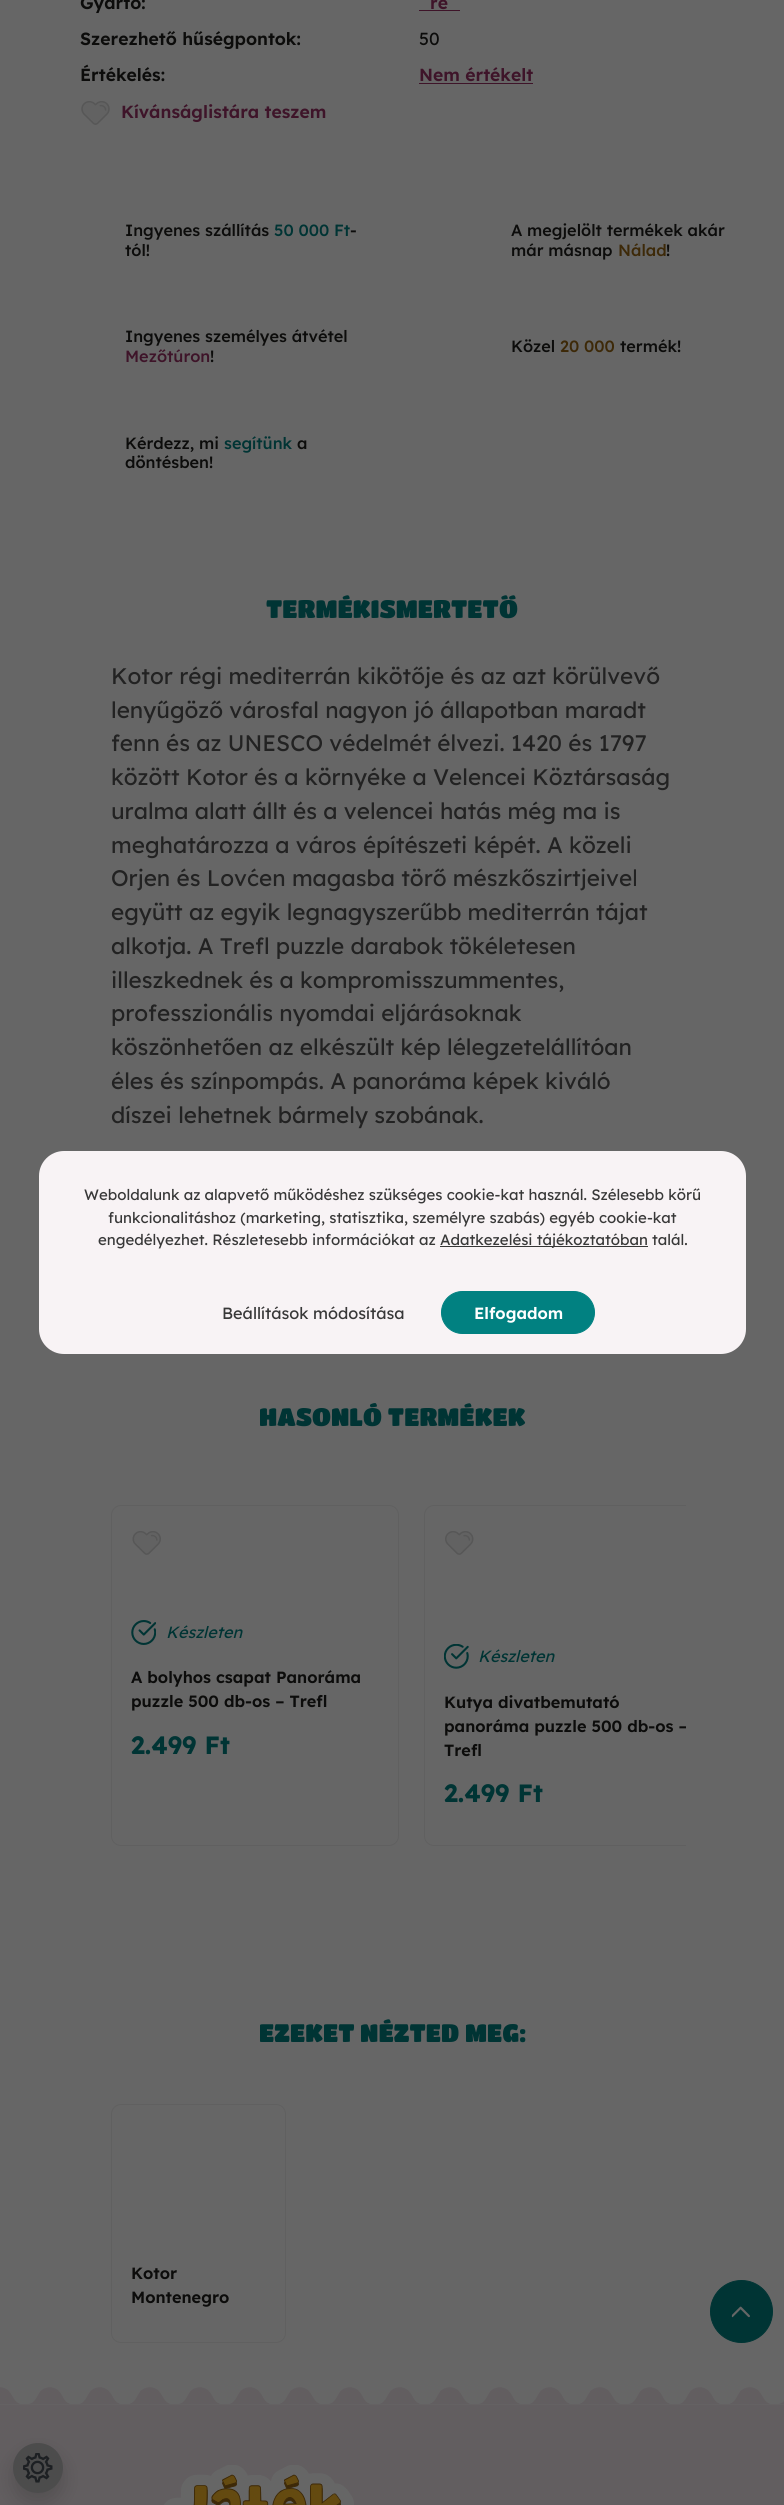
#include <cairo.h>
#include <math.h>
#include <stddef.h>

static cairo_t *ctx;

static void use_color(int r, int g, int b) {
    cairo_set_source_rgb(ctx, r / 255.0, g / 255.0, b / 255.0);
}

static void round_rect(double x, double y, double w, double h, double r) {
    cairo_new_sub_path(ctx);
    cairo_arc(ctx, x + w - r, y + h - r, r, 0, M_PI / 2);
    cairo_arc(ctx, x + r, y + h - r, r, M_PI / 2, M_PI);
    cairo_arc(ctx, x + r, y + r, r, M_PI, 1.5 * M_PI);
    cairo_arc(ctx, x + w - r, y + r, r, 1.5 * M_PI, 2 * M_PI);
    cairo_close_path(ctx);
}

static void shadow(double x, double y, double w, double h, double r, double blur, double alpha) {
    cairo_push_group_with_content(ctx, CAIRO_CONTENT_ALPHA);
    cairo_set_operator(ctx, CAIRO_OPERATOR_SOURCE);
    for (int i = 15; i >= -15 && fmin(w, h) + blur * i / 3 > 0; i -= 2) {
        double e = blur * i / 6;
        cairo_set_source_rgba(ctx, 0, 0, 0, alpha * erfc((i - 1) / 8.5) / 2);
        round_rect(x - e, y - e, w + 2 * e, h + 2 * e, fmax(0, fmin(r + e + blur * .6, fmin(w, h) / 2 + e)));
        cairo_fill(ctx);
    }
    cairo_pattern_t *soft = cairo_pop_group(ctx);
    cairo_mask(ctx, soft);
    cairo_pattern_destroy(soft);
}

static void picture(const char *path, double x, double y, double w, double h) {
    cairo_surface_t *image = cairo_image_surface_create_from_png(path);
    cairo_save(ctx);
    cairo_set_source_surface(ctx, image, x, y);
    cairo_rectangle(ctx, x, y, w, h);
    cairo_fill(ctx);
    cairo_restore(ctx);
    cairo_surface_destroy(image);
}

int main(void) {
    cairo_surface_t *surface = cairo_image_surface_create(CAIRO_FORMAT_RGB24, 784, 2505);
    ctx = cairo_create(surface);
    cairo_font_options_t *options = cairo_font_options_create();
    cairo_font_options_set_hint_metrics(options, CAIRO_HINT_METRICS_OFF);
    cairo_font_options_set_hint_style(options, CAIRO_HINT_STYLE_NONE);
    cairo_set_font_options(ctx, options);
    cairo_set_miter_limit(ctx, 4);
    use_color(102, 102, 102);
    cairo_paint(ctx);
    cairo_select_font_face(ctx, "Lexend SemiBold", CAIRO_FONT_SLANT_NORMAL, CAIRO_FONT_WEIGHT_NORMAL);
    cairo_set_font_size(ctx, 17.5);
    use_color(12, 12, 11);
    cairo_move_to(ctx, 80, 9);
    cairo_show_text(ctx, "Gyártó:");
    use_color(62, 20, 41);
    cairo_move_to(ctx, 430, 9);
    cairo_show_text(ctx, "re");
    cairo_rectangle(ctx, 419, 10, 41, 1);
    cairo_fill(ctx);
    use_color(12, 12, 11);
    cairo_move_to(ctx, 80, 45);
    cairo_show_text(ctx, "Szerezhető hűségpontok:");
    cairo_select_font_face(ctx, "Lexend", CAIRO_FONT_SLANT_NORMAL, CAIRO_FONT_WEIGHT_NORMAL);
    cairo_move_to(ctx, 419, 45);
    cairo_show_text(ctx, "50");
    cairo_select_font_face(ctx, "Lexend SemiBold", CAIRO_FONT_SLANT_NORMAL, CAIRO_FONT_WEIGHT_NORMAL);
    cairo_move_to(ctx, 80, 81);
    cairo_show_text(ctx, "Értékelés:");
    use_color(62, 20, 41);
    cairo_move_to(ctx, 419, 81);
    cairo_show_text(ctx, "Nem értékelt");
    cairo_rectangle(ctx, 419, 83, 114, 1);
    cairo_fill(ctx);
    picture("img1.png", 81, 101, 29, 24);
    cairo_move_to(ctx, 121, 118);
    cairo_show_text(ctx, "Kívánságlistára teszem");
    cairo_select_font_face(ctx, "Lexend Medium", CAIRO_FONT_SLANT_NORMAL, CAIRO_FONT_WEIGHT_NORMAL);
    cairo_set_font_size(ctx, 16.25);
    use_color(12, 12, 11);
    cairo_move_to(ctx, 125, 236);
    cairo_show_text(ctx, "Ingyenes szállítás");
    use_color(0, 52, 52);
    cairo_move_to(ctx, 274, 236);
    cairo_show_text(ctx, "50 000 Ft");
    use_color(12, 12, 11);
    cairo_move_to(ctx, 350, 236);
    cairo_show_text(ctx, "-");
    cairo_move_to(ctx, 125, 256);
    cairo_show_text(ctx, "tól!");
    cairo_move_to(ctx, 511, 236);
    cairo_show_text(ctx, "A megjelölt termékek akár");
    cairo_move_to(ctx, 511, 256);
    cairo_show_text(ctx, "már másnap");
    use_color(61, 41, 8);
    cairo_move_to(ctx, 618, 256);
    cairo_show_text(ctx, "Nálad");
    use_color(12, 12, 11);
    cairo_move_to(ctx, 666, 256);
    cairo_show_text(ctx, "!");
    cairo_move_to(ctx, 125, 342);
    cairo_show_text(ctx, "Ingyenes személyes átvétel");
    use_color(62, 20, 41);
    cairo_move_to(ctx, 125, 362);
    cairo_show_text(ctx, "Mezőtúron");
    use_color(12, 12, 11);
    cairo_move_to(ctx, 210, 362);
    cairo_show_text(ctx, "!");
    cairo_move_to(ctx, 511, 352);
    cairo_show_text(ctx, "Közel");
    use_color(61, 41, 8);
    cairo_move_to(ctx, 560, 352);
    cairo_show_text(ctx, "20 000");
    use_color(12, 12, 11);
    cairo_move_to(ctx, 620, 352);
    cairo_show_text(ctx, "termék!");
    cairo_move_to(ctx, 125, 449);
    cairo_show_text(ctx, "Kérdezz, mi");
    use_color(0, 52, 52);
    cairo_move_to(ctx, 224, 449);
    cairo_show_text(ctx, "segítünk");
    use_color(12, 12, 11);
    cairo_move_to(ctx, 297, 449);
    cairo_show_text(ctx, "a");
    cairo_move_to(ctx, 125, 468);
    cairo_show_text(ctx, "döntésben!");
    cairo_select_font_face(ctx, "Titan One", CAIRO_FONT_SLANT_NORMAL, CAIRO_FONT_WEIGHT_NORMAL);
    cairo_set_font_size(ctx, 25);
    use_color(0, 52, 52);
    cairo_move_to(ctx, 266, 618);
    cairo_show_text(ctx, "TERMÉKISMERTETŐ");
    cairo_select_font_face(ctx, "Lexend", CAIRO_FONT_SLANT_NORMAL, CAIRO_FONT_WEIGHT_NORMAL);
    cairo_set_font_size(ctx, 22.5);
    use_color(34, 34, 34);
    cairo_move_to(ctx, 111, 684);
    cairo_show_text(ctx, "Kotor régi mediterrán kikötője és az azt körülvevő");
    cairo_move_to(ctx, 111, 718);
    cairo_show_text(ctx, "lenyűgöző városfal nagyon jó állapotban maradt");
    cairo_move_to(ctx, 111, 751);
    cairo_show_text(ctx, "fenn és az UNESCO védelmét élvezi. 1420 és 1797");
    cairo_move_to(ctx, 111, 785);
    cairo_show_text(ctx, "között Kotor és a környéke a Velencei Köztársaság");
    cairo_move_to(ctx, 111, 819);
    cairo_show_text(ctx, "uralma alatt állt és a velencei hatás még ma is");
    cairo_move_to(ctx, 111, 853);
    cairo_show_text(ctx, "meghatározza a város építészeti képét. A közeli");
    cairo_move_to(ctx, 111, 886);
    cairo_show_text(ctx, "Orjen és Lovćen magasba törő mészkőszirtjeivel");
    cairo_move_to(ctx, 111, 920);
    cairo_show_text(ctx, "együtt az egyik legnagyszerűbb mediterrán tájat");
    cairo_move_to(ctx, 111, 954);
    cairo_show_text(ctx, "alkotja. A Trefl puzzle darabok tökéletesen");
    cairo_move_to(ctx, 111, 988);
    cairo_show_text(ctx, "illeszkednek és a kompromisszummentes,");
    cairo_move_to(ctx, 111, 1021);
    cairo_show_text(ctx, "professzionális nyomdai eljárásoknak");
    cairo_move_to(ctx, 111, 1055);
    cairo_show_text(ctx, "köszönhetően az elkészült kép lélegzetelállítóan");
    cairo_move_to(ctx, 111, 1089);
    cairo_show_text(ctx, "éles és színpompás. A panoráma képek kiváló");
    cairo_move_to(ctx, 111, 1123);
    cairo_show_text(ctx, "díszei lehetnek bármely szobának.");
    cairo_select_font_face(ctx, "Titan One", CAIRO_FONT_SLANT_NORMAL, CAIRO_FONT_WEIGHT_NORMAL);
    cairo_set_font_size(ctx, 25);
    use_color(0, 52, 52);
    cairo_move_to(ctx, 259, 1426);
    cairo_show_text(ctx, "HASONLÓ TERMÉKEK");
    round_rect(111.5, 1505.5, 287, 340, 9.5);
    use_color(96, 96, 96);
    cairo_set_line_width(ctx, 1);
    cairo_stroke(ctx);
    picture("img2.png", 132, 1531, 29, 24);
    picture("img3.png", 131, 1620, 25, 25);
    cairo_select_font_face(ctx, "Lexend", CAIRO_FONT_SLANT_ITALIC, CAIRO_FONT_WEIGHT_NORMAL);
    cairo_set_font_size(ctx, 16.25);
    use_color(0, 52, 52);
    cairo_move_to(ctx, 166, 1638);
    cairo_show_text(ctx, "Készleten");
    cairo_select_font_face(ctx, "Lexend SemiBold", CAIRO_FONT_SLANT_NORMAL, CAIRO_FONT_WEIGHT_NORMAL);
    use_color(12, 12, 11);
    cairo_move_to(ctx, 131, 1683);
    cairo_show_text(ctx, "A bolyhos csapat Panoráma");
    cairo_move_to(ctx, 131, 1707);
    cairo_show_text(ctx, "puzzle 500 db-os – Trefl");
    cairo_select_font_face(ctx, "Lexend", CAIRO_FONT_SLANT_NORMAL, CAIRO_FONT_WEIGHT_BOLD);
    cairo_set_font_size(ctx, 25);
    use_color(0, 52, 52);
    cairo_move_to(ctx, 131, 1754);
    cairo_show_text(ctx, "2.499 Ft");
    cairo_save(ctx);
    cairo_rectangle(ctx, 99, 1468, 587, 391);
    cairo_clip(ctx);
    round_rect(424.5, 1505.5, 286, 340, 9.5);
    use_color(96, 96, 96);
    cairo_stroke(ctx);
    cairo_restore(ctx);
    picture("img4.png", 445, 1531, 29, 24);
    picture("img5.png", 444, 1644, 25, 25);
    cairo_select_font_face(ctx, "Lexend", CAIRO_FONT_SLANT_ITALIC, CAIRO_FONT_WEIGHT_NORMAL);
    cairo_set_font_size(ctx, 16.25);
    cairo_move_to(ctx, 478, 1662);
    cairo_show_text(ctx, "Készleten");
    cairo_select_font_face(ctx, "Lexend SemiBold", CAIRO_FONT_SLANT_NORMAL, CAIRO_FONT_WEIGHT_NORMAL);
    use_color(12, 12, 11);
    cairo_move_to(ctx, 444, 1708);
    cairo_show_text(ctx, "Kutya divatbemutató");
    cairo_save(ctx);
    cairo_rectangle(ctx, 99, 1468, 587, 391);
    cairo_clip(ctx);
    cairo_move_to(ctx, 444, 1732);
    cairo_show_text(ctx, "panoráma puzzle 500 db-os –");
    cairo_restore(ctx);
    cairo_move_to(ctx, 444, 1756);
    cairo_show_text(ctx, "Trefl");
    cairo_select_font_face(ctx, "Lexend", CAIRO_FONT_SLANT_NORMAL, CAIRO_FONT_WEIGHT_BOLD);
    cairo_set_font_size(ctx, 25);
    use_color(0, 52, 52);
    cairo_move_to(ctx, 444, 1802);
    cairo_show_text(ctx, "2.499 Ft");
    cairo_select_font_face(ctx, "Titan One", CAIRO_FONT_SLANT_NORMAL, CAIRO_FONT_WEIGHT_NORMAL);
    cairo_move_to(ctx, 259, 2042);
    cairo_show_text(ctx, "EZEKET NÉZTED MEG:");
    round_rect(111.5, 2104.5, 174, 238, 9.5);
    use_color(96, 96, 96);
    cairo_stroke(ctx);
    cairo_select_font_face(ctx, "Lexend SemiBold", CAIRO_FONT_SLANT_NORMAL, CAIRO_FONT_WEIGHT_NORMAL);
    cairo_set_font_size(ctx, 16.25);
    use_color(12, 12, 11);
    cairo_move_to(ctx, 131, 2279);
    cairo_show_text(ctx, "Kotor");
    cairo_move_to(ctx, 131, 2303);
    cairo_show_text(ctx, "Montenegro");
    use_color(0, 52, 52);
    cairo_new_path(ctx);
    cairo_arc(ctx, 741.5, 2311.5, 31, 0, 2 * M_PI);
    cairo_fill_preserve(ctx);
    cairo_stroke(ctx);
    picture("img6.png", 731, 2306, 19, 12);
    use_color(98, 94, 96);
    cairo_rectangle(ctx, 0, 2385, 784, 120);
    cairo_fill(ctx);
    picture("img7.png", 0, 2385, 784, 20);
    picture("img8.png", 164, 2465, 190, 40);
    use_color(248, 243, 245);
    round_rect(39, 1151, 707, 203, 25);
    cairo_fill(ctx);
    cairo_select_font_face(ctx, "Lexend", CAIRO_FONT_SLANT_NORMAL, CAIRO_FONT_WEIGHT_NORMAL);
    cairo_set_font_size(ctx, 15);
    use_color(56, 56, 56);
    cairo_move_to(ctx, 84, 1200);
    cairo_show_text(ctx, "Weboldalunk az alapvető működéshez szükséges cookie-kat használ. Szélesebb körű");
    cairo_move_to(ctx, 108, 1223);
    cairo_show_text(ctx, "funkcionalitáshoz (marketing, statisztika, személyre szabás) egyéb cookie-kat");
    cairo_move_to(ctx, 98, 1245);
    cairo_show_text(ctx, "engedélyezhet. Részletesebb információkat az");
    use_color(54, 54, 54);
    cairo_rectangle(ctx, 440, 1246, 208, 1);
    cairo_fill(ctx);
    use_color(56, 56, 56);
    cairo_move_to(ctx, 440, 1245);
    cairo_show_text(ctx, "Adatkezelési tájékoztatóban");
    cairo_move_to(ctx, 652, 1245);
    cairo_show_text(ctx, "talál.");
    cairo_set_font_size(ctx, 16.25);
    cairo_move_to(ctx, 222, 1319);
    cairo_show_text(ctx, "Beállítások módosítása");
    use_color(1, 129, 129);
    round_rect(441.5, 1291.5, 153, 42, 21);
    cairo_fill_preserve(ctx);
    cairo_stroke(ctx);
    cairo_select_font_face(ctx, "Lexend SemiBold", CAIRO_FONT_SLANT_NORMAL, CAIRO_FONT_WEIGHT_NORMAL);
    use_color(255, 255, 255);
    cairo_move_to(ctx, 474, 1319);
    cairo_show_text(ctx, "Elfogadom");
    use_color(0, 0, 0);
    shadow(13, 2453, 50, 50, 25, 10, 0.15);
    use_color(76, 76, 76);
    cairo_arc(ctx, 38, 2468, 25, 0, 2 * M_PI);
    cairo_fill(ctx);
    picture("img9.png", 23, 2453, 30, 30);
    cairo_surface_write_to_png(surface, "result.png");
    cairo_font_options_destroy(options);
    cairo_destroy(ctx);
    cairo_surface_destroy(surface);
    return 0;
}
